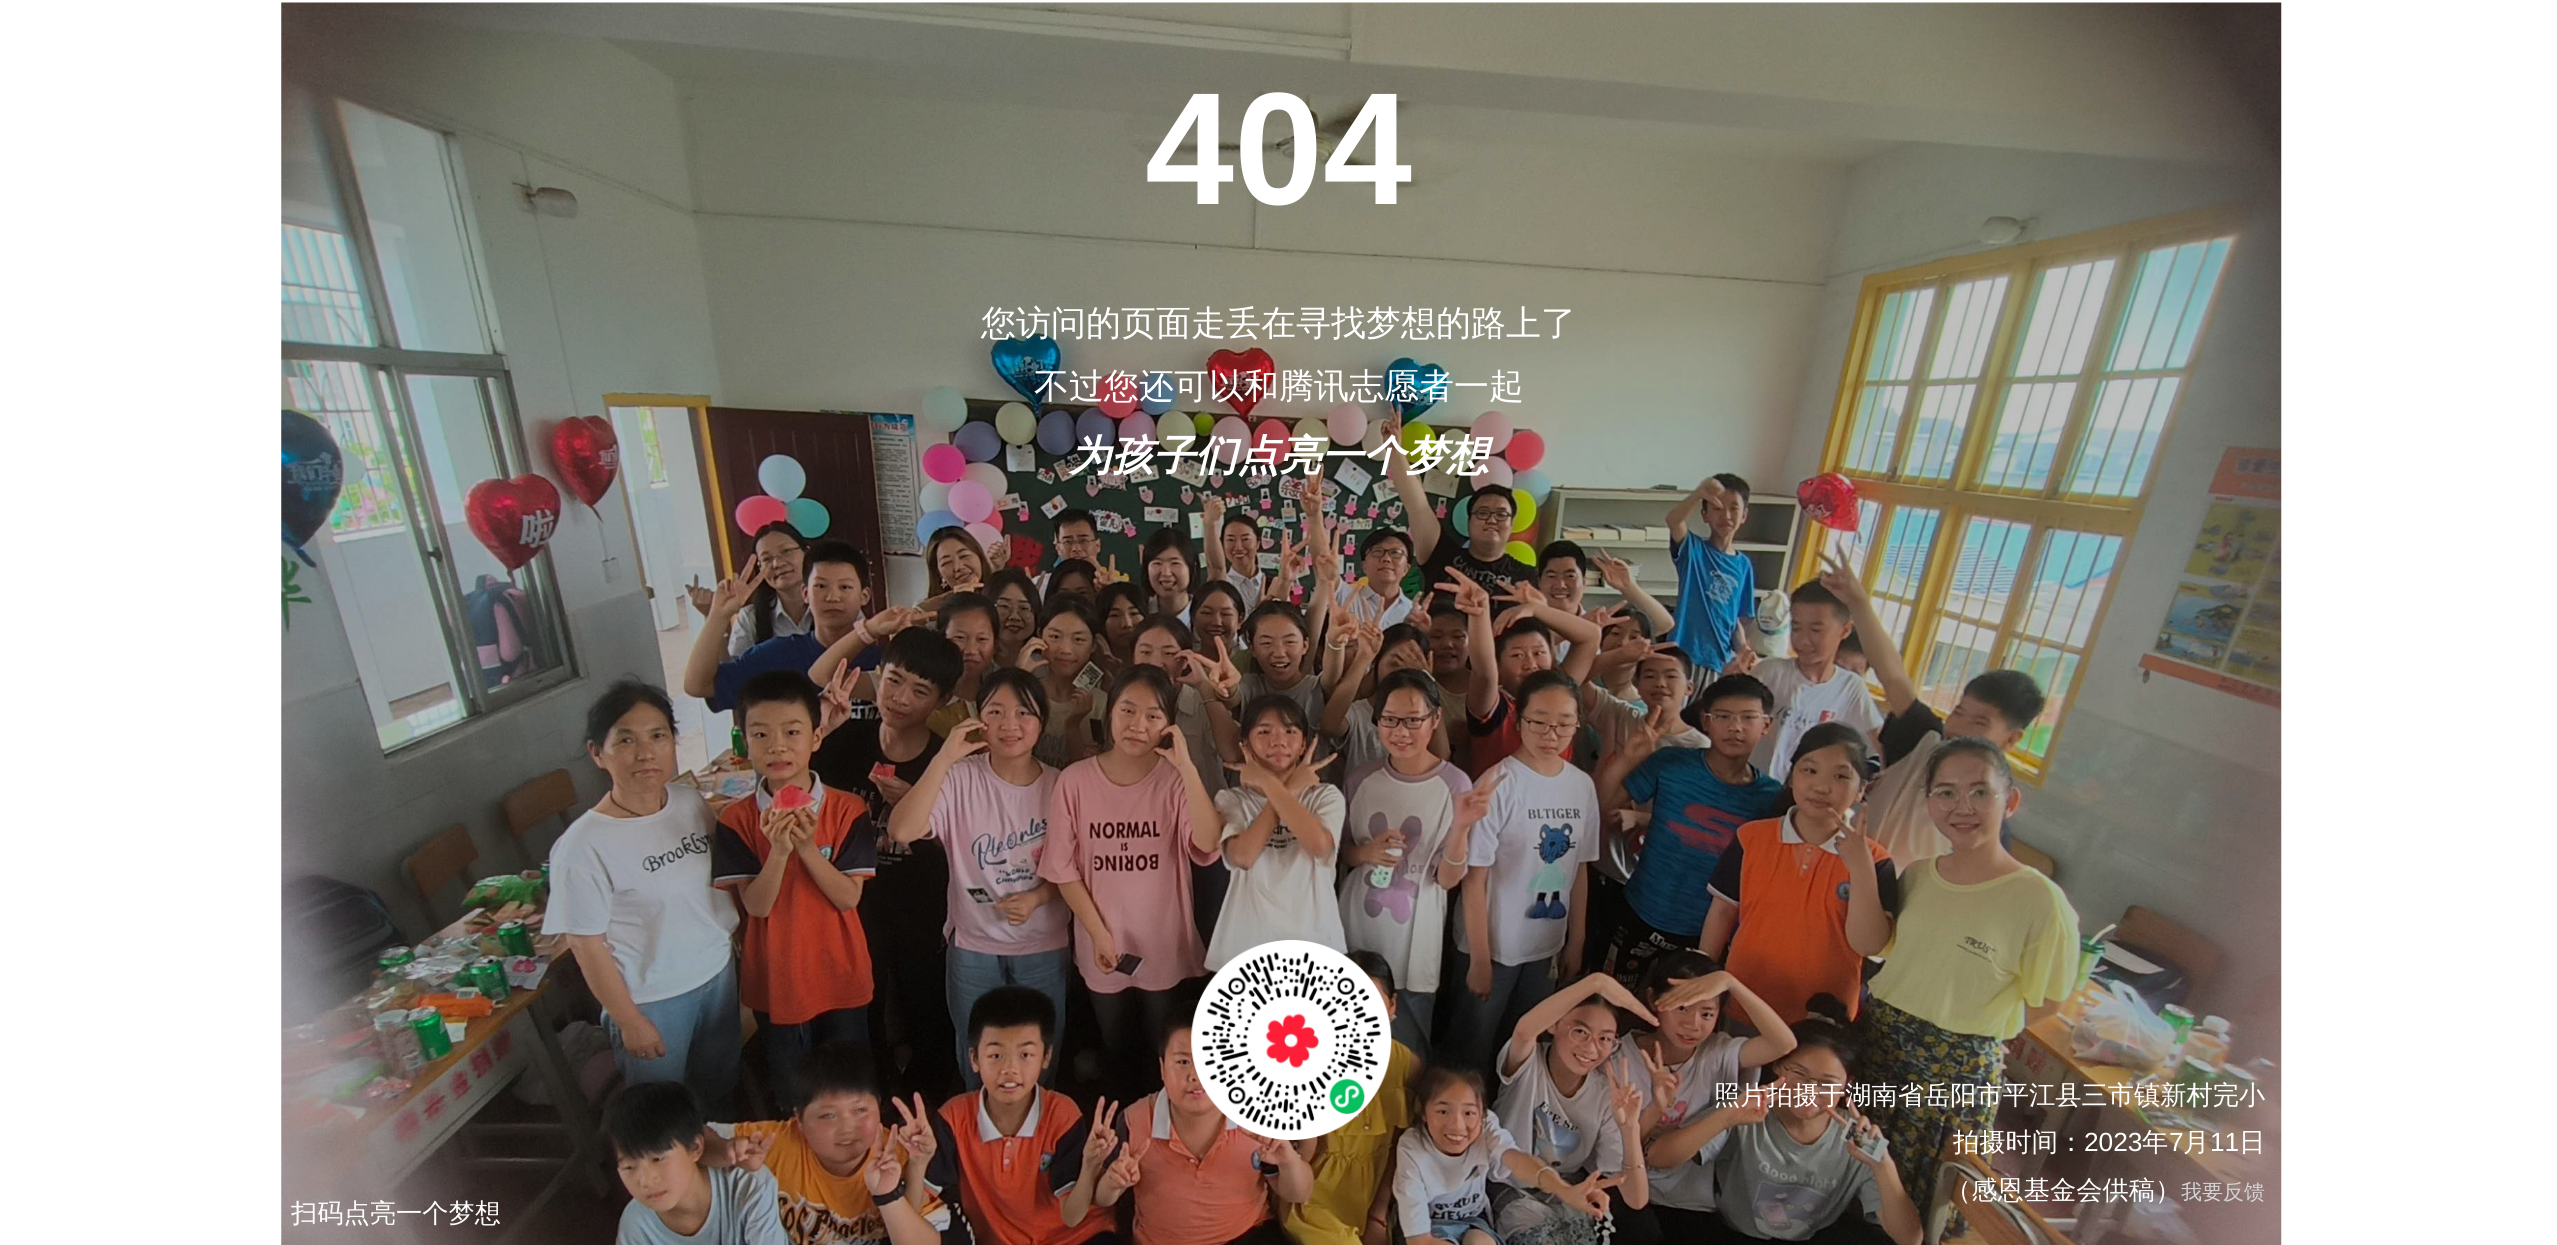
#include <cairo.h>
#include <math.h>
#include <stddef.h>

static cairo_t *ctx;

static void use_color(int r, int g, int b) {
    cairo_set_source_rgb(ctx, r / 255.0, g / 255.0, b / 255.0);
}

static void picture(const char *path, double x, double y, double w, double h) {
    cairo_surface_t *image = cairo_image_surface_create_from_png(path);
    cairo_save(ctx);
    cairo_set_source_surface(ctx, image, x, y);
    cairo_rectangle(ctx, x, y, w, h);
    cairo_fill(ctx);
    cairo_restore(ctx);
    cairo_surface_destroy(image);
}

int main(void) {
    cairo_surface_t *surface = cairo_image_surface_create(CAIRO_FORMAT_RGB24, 2557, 1245);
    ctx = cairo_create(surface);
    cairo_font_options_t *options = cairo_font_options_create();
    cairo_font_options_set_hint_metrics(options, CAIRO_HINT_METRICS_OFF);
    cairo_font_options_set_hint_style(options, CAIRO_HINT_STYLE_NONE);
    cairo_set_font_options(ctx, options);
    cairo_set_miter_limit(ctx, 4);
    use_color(255, 255, 255);
    cairo_paint(ctx);
    picture("img1.png", 281, 2, 2001, 1243);
    cairo_select_font_face(ctx, "Liberation Sans", CAIRO_FONT_SLANT_NORMAL, CAIRO_FONT_WEIGHT_BOLD);
    cairo_set_font_size(ctx, 160);
    use_color(255, 255, 255);
    cairo_move_to(ctx, 1145, 204);
    cairo_show_text(ctx, "404");
    cairo_select_font_face(ctx, "WenQuanYi Zen Hei Medium", CAIRO_FONT_SLANT_NORMAL, CAIRO_FONT_WEIGHT_NORMAL);
    cairo_set_font_size(ctx, 35);
    cairo_move_to(ctx, 981, 335);
    cairo_show_text(ctx, "您访问的页面走丢在寻找梦想的路上了");
    cairo_move_to(ctx, 1034, 398);
    cairo_show_text(ctx, "不过您还可以和腾讯志愿者一起");
    cairo_select_font_face(ctx, "WenQuanYi Zen Hei", CAIRO_FONT_SLANT_ITALIC, CAIRO_FONT_WEIGHT_BOLD);
    cairo_set_font_size(ctx, 42);
    cairo_move_to(ctx, 1069, 470);
    cairo_show_text(ctx, "为孩子们点亮一个梦想");
    picture("img2.png", 1191, 940, 201, 200);
    cairo_select_font_face(ctx, "WenQuanYi Zen Hei Medium", CAIRO_FONT_SLANT_NORMAL, CAIRO_FONT_WEIGHT_NORMAL);
    cairo_set_font_size(ctx, 26.25);
    cairo_move_to(ctx, 1714, 1104);
    cairo_show_text(ctx, "照片拍摄于湖南省岳阳市平江县三市镇新村完小");
    cairo_move_to(ctx, 1953, 1151);
    cairo_show_text(ctx, "拍摄时间：");
    cairo_select_font_face(ctx, "Liberation Sans", CAIRO_FONT_SLANT_NORMAL, CAIRO_FONT_WEIGHT_NORMAL);
    cairo_move_to(ctx, 2084, 1151);
    cairo_show_text(ctx, "2023");
    cairo_select_font_face(ctx, "WenQuanYi Zen Hei Medium", CAIRO_FONT_SLANT_NORMAL, CAIRO_FONT_WEIGHT_NORMAL);
    cairo_move_to(ctx, 2142, 1151);
    cairo_show_text(ctx, "年");
    cairo_select_font_face(ctx, "Liberation Sans", CAIRO_FONT_SLANT_NORMAL, CAIRO_FONT_WEIGHT_NORMAL);
    cairo_move_to(ctx, 2169, 1151);
    cairo_show_text(ctx, "7");
    cairo_select_font_face(ctx, "WenQuanYi Zen Hei Medium", CAIRO_FONT_SLANT_NORMAL, CAIRO_FONT_WEIGHT_NORMAL);
    cairo_move_to(ctx, 2183, 1151);
    cairo_show_text(ctx, "月");
    cairo_select_font_face(ctx, "Liberation Sans", CAIRO_FONT_SLANT_NORMAL, CAIRO_FONT_WEIGHT_NORMAL);
    cairo_move_to(ctx, 2210, 1151);
    cairo_show_text(ctx, "11");
    cairo_select_font_face(ctx, "WenQuanYi Zen Hei Medium", CAIRO_FONT_SLANT_NORMAL, CAIRO_FONT_WEIGHT_NORMAL);
    cairo_move_to(ctx, 2239, 1151);
    cairo_show_text(ctx, "日");
    cairo_move_to(ctx, 1945, 1199);
    cairo_show_text(ctx, "（感恩基金会供稿）");
    cairo_set_font_size(ctx, 21);
    use_color(211, 211, 211);
    cairo_move_to(ctx, 2181, 1199);
    cairo_show_text(ctx, "我要反馈");
    cairo_set_font_size(ctx, 26.25);
    use_color(255, 255, 255);
    cairo_move_to(ctx, 291, 1222);
    cairo_show_text(ctx, "扫码点亮一个梦想");
    cairo_surface_write_to_png(surface, "result.png");
    cairo_font_options_destroy(options);
    cairo_destroy(ctx);
    cairo_surface_destroy(surface);
    return 0;
}
